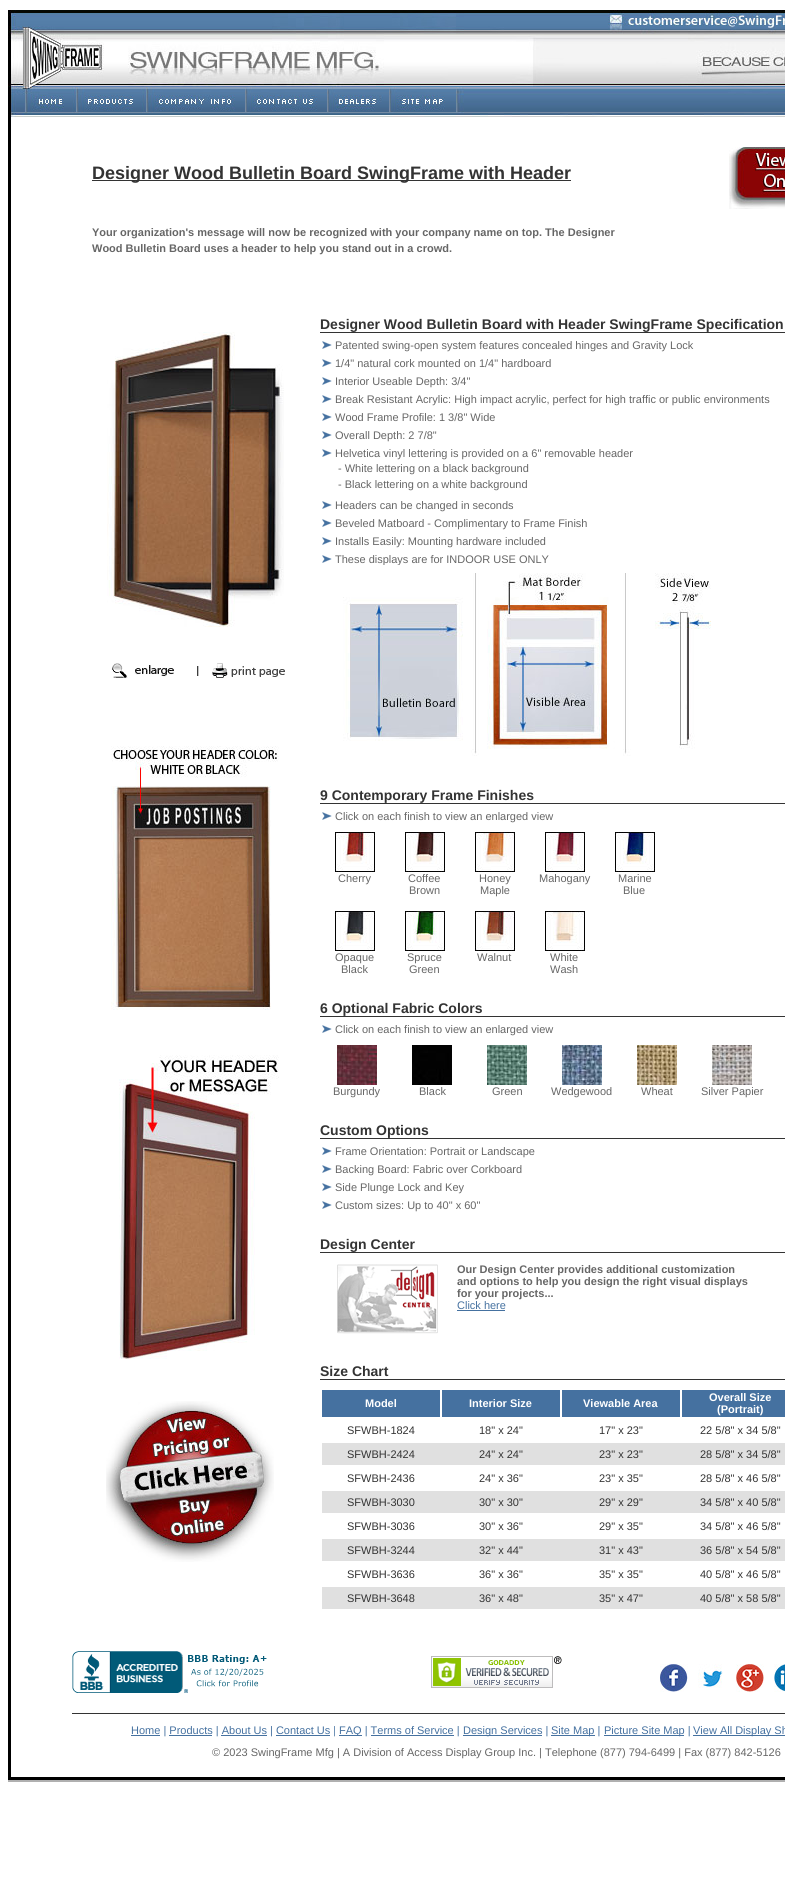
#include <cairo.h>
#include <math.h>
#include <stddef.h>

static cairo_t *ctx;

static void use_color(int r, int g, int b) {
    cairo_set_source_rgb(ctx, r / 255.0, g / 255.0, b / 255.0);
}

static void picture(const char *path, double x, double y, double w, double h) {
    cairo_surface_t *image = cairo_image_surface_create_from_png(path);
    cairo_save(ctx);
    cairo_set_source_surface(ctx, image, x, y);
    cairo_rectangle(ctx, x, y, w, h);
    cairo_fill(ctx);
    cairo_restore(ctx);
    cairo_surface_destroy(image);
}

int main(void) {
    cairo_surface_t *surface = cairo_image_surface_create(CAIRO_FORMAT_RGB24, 785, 1884);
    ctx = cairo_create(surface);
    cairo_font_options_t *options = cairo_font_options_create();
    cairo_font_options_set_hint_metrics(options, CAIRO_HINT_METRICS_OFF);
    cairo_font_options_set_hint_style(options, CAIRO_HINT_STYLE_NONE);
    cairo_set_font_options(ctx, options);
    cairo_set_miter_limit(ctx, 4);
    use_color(255, 255, 255);
    cairo_paint(ctx);
    picture("img1.png", 8, 10, 777, 77);
    picture("img2.png", 8, 87, 69, 26);
    picture("img3.png", 77, 87, 70, 26);
    picture("img4.png", 147, 87, 98, 26);
    picture("img5.png", 245, 87, 82, 26);
    picture("img6.png", 327, 87, 62, 26);
    picture("img7.png", 389, 87, 67, 26);
    picture("img8.png", 456, 87, 329, 26);
    picture("img9.png", 8, 113, 777, 4);
    use_color(0, 0, 0);
    cairo_rectangle(ctx, 8, 117, 3, 1659);
    cairo_fill(ctx);
    use_color(51, 51, 51);
    cairo_rectangle(ctx, 92, 180, 479, 1);
    cairo_fill(ctx);
    cairo_select_font_face(ctx, "Liberation Sans", CAIRO_FONT_SLANT_NORMAL, CAIRO_FONT_WEIGHT_BOLD);
    cairo_set_font_size(ctx, 18);
    cairo_move_to(ctx, 92, 179);
    cairo_show_text(ctx, "Designer Wood Bulletin Board SwingFrame with Header");
    cairo_set_font_size(ctx, 11);
    use_color(102, 102, 102);
    cairo_move_to(ctx, 92, 236);
    cairo_show_text(ctx, "Your organization's message will now be recognized with your company name on top. The Designer");
    cairo_move_to(ctx, 92, 252);
    cairo_show_text(ctx, "Wood Bulletin Board uses a header to help you stand out in a crowd.");
    picture("img10.png", 729, 147, 56, 62);
    cairo_set_font_size(ctx, 14);
    use_color(51, 51, 51);
    cairo_move_to(ctx, 320, 329);
    cairo_show_text(ctx, "Designer Wood Bulletin Board with Header SwingFrame Specification");
    picture("img11.png", 107, 332, 177, 295);
    picture("img12.png", 112, 663, 87, 15);
    picture("img13.png", 212, 663, 73, 15);
    picture("img14.png", 111, 746, 168, 264);
    picture("img15.png", 119, 1055, 160, 304);
    picture("img16.png", 106, 1401, 168, 161);
    cairo_rectangle(ctx, 320, 332, 465, 1);
    cairo_fill(ctx);
    picture("img17.png", 322, 341, 10, 8);
    cairo_select_font_face(ctx, "Liberation Sans", CAIRO_FONT_SLANT_NORMAL, CAIRO_FONT_WEIGHT_NORMAL);
    cairo_set_font_size(ctx, 11);
    use_color(102, 102, 102);
    cairo_move_to(ctx, 335, 349);
    cairo_show_text(ctx, "Patented swing-open system features concealed hinges and Gravity Lock");
    picture("img17.png", 322, 359, 10, 8);
    cairo_move_to(ctx, 335, 367);
    cairo_show_text(ctx, "1/4\" natural cork mounted on 1/4\" hardboard");
    picture("img17.png", 322, 377, 10, 8);
    cairo_move_to(ctx, 335, 385);
    cairo_show_text(ctx, "Interior Useable Depth: 3/4\"");
    picture("img17.png", 322, 395, 10, 8);
    cairo_move_to(ctx, 335, 403);
    cairo_show_text(ctx, "Break Resistant Acrylic: High impact acrylic, perfect for high traffic or public environments");
    picture("img17.png", 322, 413, 10, 8);
    cairo_move_to(ctx, 335, 421);
    cairo_show_text(ctx, "Wood Frame Profile: 1 3/8\" Wide");
    picture("img17.png", 322, 431, 10, 8);
    cairo_move_to(ctx, 335, 439);
    cairo_show_text(ctx, "Overall Depth: 2 7/8\"");
    picture("img17.png", 322, 449, 10, 8);
    cairo_move_to(ctx, 335, 457);
    cairo_show_text(ctx, "Helvetica vinyl lettering is provided on a 6\" removable header");
    cairo_move_to(ctx, 338, 472);
    cairo_show_text(ctx, "- White lettering on a black background");
    cairo_move_to(ctx, 338, 488);
    cairo_show_text(ctx, "- Black lettering on a white background");
    picture("img17.png", 322, 501, 10, 8);
    cairo_move_to(ctx, 335, 509);
    cairo_show_text(ctx, "Headers can be changed in seconds");
    picture("img17.png", 322, 519, 10, 8);
    cairo_move_to(ctx, 335, 527);
    cairo_show_text(ctx, "Beveled Matboard - Complimentary to Frame Finish");
    picture("img17.png", 322, 537, 10, 8);
    cairo_move_to(ctx, 335, 545);
    cairo_show_text(ctx, "Installs Easily: Mounting hardware included");
    picture("img17.png", 322, 555, 10, 8);
    cairo_move_to(ctx, 335, 563);
    cairo_show_text(ctx, "These displays are for INDOOR USE ONLY");
    picture("img18.png", 343, 565, 368, 191);
    cairo_select_font_face(ctx, "Liberation Sans", CAIRO_FONT_SLANT_NORMAL, CAIRO_FONT_WEIGHT_BOLD);
    cairo_set_font_size(ctx, 14);
    use_color(51, 51, 51);
    cairo_move_to(ctx, 320, 800);
    cairo_show_text(ctx, "9 Contemporary Frame Finishes");
    cairo_rectangle(ctx, 320, 803, 465, 1);
    cairo_fill(ctx);
    picture("img17.png", 322, 812, 10, 8);
    cairo_select_font_face(ctx, "Liberation Sans", CAIRO_FONT_SLANT_NORMAL, CAIRO_FONT_WEIGHT_NORMAL);
    cairo_set_font_size(ctx, 11);
    use_color(102, 102, 102);
    cairo_move_to(ctx, 335, 820);
    cairo_show_text(ctx, "Click on each finish to view an enlarged view");
    picture("img19.png", 335, 832, 40, 40);
    picture("img20.png", 405, 832, 40, 40);
    picture("img21.png", 475, 832, 40, 40);
    picture("img22.png", 545, 832, 40, 40);
    picture("img23.png", 615, 832, 40, 40);
    cairo_move_to(ctx, 338, 882);
    cairo_show_text(ctx, "Cherry");
    cairo_move_to(ctx, 408, 882);
    cairo_show_text(ctx, "Coffee");
    cairo_move_to(ctx, 409, 894);
    cairo_show_text(ctx, "Brown");
    cairo_move_to(ctx, 479, 882);
    cairo_show_text(ctx, "Honey");
    cairo_move_to(ctx, 480, 894);
    cairo_show_text(ctx, "Maple");
    cairo_move_to(ctx, 539, 882);
    cairo_show_text(ctx, "Mahogany");
    cairo_move_to(ctx, 618, 882);
    cairo_show_text(ctx, "Marine");
    cairo_move_to(ctx, 623, 894);
    cairo_show_text(ctx, "Blue");
    picture("img24.png", 335, 911, 40, 40);
    picture("img25.png", 405, 911, 40, 40);
    picture("img26.png", 475, 911, 40, 40);
    picture("img27.png", 545, 911, 40, 40);
    cairo_move_to(ctx, 335, 961);
    cairo_show_text(ctx, "Opaque");
    cairo_move_to(ctx, 341, 973);
    cairo_show_text(ctx, "Black");
    cairo_move_to(ctx, 407, 961);
    cairo_show_text(ctx, "Spruce");
    cairo_move_to(ctx, 409, 973);
    cairo_show_text(ctx, "Green");
    cairo_move_to(ctx, 477, 961);
    cairo_show_text(ctx, "Walnut");
    cairo_move_to(ctx, 550, 961);
    cairo_show_text(ctx, "White");
    cairo_move_to(ctx, 550, 973);
    cairo_show_text(ctx, "Wash");
    cairo_select_font_face(ctx, "Liberation Sans", CAIRO_FONT_SLANT_NORMAL, CAIRO_FONT_WEIGHT_BOLD);
    cairo_set_font_size(ctx, 14);
    use_color(51, 51, 51);
    cairo_move_to(ctx, 320, 1013);
    cairo_show_text(ctx, "6 Optional Fabric Colors");
    cairo_rectangle(ctx, 320, 1016, 465, 1);
    cairo_fill(ctx);
    picture("img17.png", 322, 1025, 10, 8);
    cairo_select_font_face(ctx, "Liberation Sans", CAIRO_FONT_SLANT_NORMAL, CAIRO_FONT_WEIGHT_NORMAL);
    cairo_set_font_size(ctx, 11);
    use_color(102, 102, 102);
    cairo_move_to(ctx, 335, 1033);
    cairo_show_text(ctx, "Click on each finish to view an enlarged view");
    picture("img28.png", 337, 1045, 40, 40);
    picture("img29.png", 412, 1045, 40, 40);
    picture("img30.png", 487, 1045, 40, 40);
    picture("img31.png", 562, 1045, 40, 40);
    picture("img32.png", 637, 1045, 40, 40);
    picture("img33.png", 712, 1045, 40, 40);
    cairo_move_to(ctx, 333, 1095);
    cairo_show_text(ctx, "Burgundy");
    cairo_move_to(ctx, 419, 1095);
    cairo_show_text(ctx, "Black");
    cairo_move_to(ctx, 492, 1095);
    cairo_show_text(ctx, "Green");
    cairo_move_to(ctx, 551, 1095);
    cairo_show_text(ctx, "Wedgewood");
    cairo_move_to(ctx, 641, 1095);
    cairo_show_text(ctx, "Wheat");
    cairo_move_to(ctx, 701, 1095);
    cairo_show_text(ctx, "Silver Papier");
    cairo_select_font_face(ctx, "Liberation Sans", CAIRO_FONT_SLANT_NORMAL, CAIRO_FONT_WEIGHT_BOLD);
    cairo_set_font_size(ctx, 14);
    use_color(51, 51, 51);
    cairo_move_to(ctx, 320, 1135);
    cairo_show_text(ctx, "Custom Options");
    cairo_rectangle(ctx, 320, 1138, 465, 1);
    cairo_fill(ctx);
    picture("img17.png", 322, 1147, 10, 8);
    cairo_select_font_face(ctx, "Liberation Sans", CAIRO_FONT_SLANT_NORMAL, CAIRO_FONT_WEIGHT_NORMAL);
    cairo_set_font_size(ctx, 11);
    use_color(102, 102, 102);
    cairo_move_to(ctx, 335, 1155);
    cairo_show_text(ctx, "Frame Orientation: Portrait or Landscape");
    picture("img17.png", 322, 1165, 10, 8);
    cairo_move_to(ctx, 335, 1173);
    cairo_show_text(ctx, "Backing Board: Fabric over Corkboard");
    picture("img17.png", 322, 1183, 10, 8);
    cairo_move_to(ctx, 335, 1191);
    cairo_show_text(ctx, "Side Plunge Lock and Key");
    picture("img17.png", 322, 1201, 10, 8);
    cairo_move_to(ctx, 335, 1209);
    cairo_show_text(ctx, "Custom sizes: Up to 40\" x 60\"");
    cairo_select_font_face(ctx, "Liberation Sans", CAIRO_FONT_SLANT_NORMAL, CAIRO_FONT_WEIGHT_BOLD);
    cairo_set_font_size(ctx, 14);
    use_color(51, 51, 51);
    cairo_move_to(ctx, 320, 1249);
    cairo_show_text(ctx, "Design Center");
    cairo_rectangle(ctx, 320, 1252, 465, 1);
    cairo_fill(ctx);
    picture("img34.png", 337, 1264, 101, 70);
    cairo_set_font_size(ctx, 11);
    use_color(102, 102, 102);
    cairo_move_to(ctx, 457, 1273);
    cairo_show_text(ctx, "Our Design Center provides additional customization");
    cairo_move_to(ctx, 457, 1285);
    cairo_show_text(ctx, "and options to help you design the right visual displays");
    cairo_move_to(ctx, 457, 1297);
    cairo_show_text(ctx, "for your projects...");
    cairo_select_font_face(ctx, "Liberation Sans", CAIRO_FONT_SLANT_NORMAL, CAIRO_FONT_WEIGHT_NORMAL);
    use_color(69, 113, 160);
    cairo_move_to(ctx, 457, 1309);
    cairo_show_text(ctx, "Click here");
    cairo_rectangle(ctx, 457, 1310, 48, 1);
    cairo_fill(ctx);
    cairo_select_font_face(ctx, "Liberation Sans", CAIRO_FONT_SLANT_NORMAL, CAIRO_FONT_WEIGHT_BOLD);
    cairo_set_font_size(ctx, 14);
    use_color(51, 51, 51);
    cairo_move_to(ctx, 320, 1376);
    cairo_show_text(ctx, "Size Chart");
    cairo_rectangle(ctx, 320, 1379, 465, 1);
    cairo_fill(ctx);
    use_color(69, 113, 160);
    cairo_rectangle(ctx, 322, 1390, 118, 27);
    cairo_fill(ctx);
    cairo_set_font_size(ctx, 11);
    use_color(255, 255, 255);
    cairo_move_to(ctx, 365, 1407);
    cairo_show_text(ctx, "Model");
    use_color(69, 113, 160);
    cairo_rectangle(ctx, 442, 1390, 118, 27);
    cairo_fill(ctx);
    use_color(255, 255, 255);
    cairo_move_to(ctx, 469, 1407);
    cairo_show_text(ctx, "Interior Size");
    use_color(69, 113, 160);
    cairo_rectangle(ctx, 562, 1390, 118, 27);
    cairo_fill(ctx);
    use_color(255, 255, 255);
    cairo_move_to(ctx, 583, 1407);
    cairo_show_text(ctx, "Viewable Area");
    use_color(69, 113, 160);
    cairo_rectangle(ctx, 682, 1390, 103, 27);
    cairo_fill(ctx);
    use_color(255, 255, 255);
    cairo_move_to(ctx, 709, 1401);
    cairo_show_text(ctx, "Overall Size");
    cairo_move_to(ctx, 717, 1413);
    cairo_show_text(ctx, "(Portrait)");
    cairo_select_font_face(ctx, "Liberation Sans", CAIRO_FONT_SLANT_NORMAL, CAIRO_FONT_WEIGHT_NORMAL);
    use_color(51, 51, 51);
    cairo_move_to(ctx, 347, 1434);
    cairo_show_text(ctx, "SFWBH-1824");
    cairo_move_to(ctx, 479, 1434);
    cairo_show_text(ctx, "18\" x 24\"");
    cairo_move_to(ctx, 599, 1434);
    cairo_show_text(ctx, "17\" x 23\"");
    cairo_move_to(ctx, 700, 1434);
    cairo_show_text(ctx, "22 5/8\" x 34 5/8\"");
    use_color(224, 224, 224);
    cairo_rectangle(ctx, 322, 1443, 463, 22);
    cairo_fill(ctx);
    use_color(51, 51, 51);
    cairo_move_to(ctx, 347, 1458);
    cairo_show_text(ctx, "SFWBH-2424");
    cairo_move_to(ctx, 479, 1458);
    cairo_show_text(ctx, "24\" x 24\"");
    cairo_move_to(ctx, 599, 1458);
    cairo_show_text(ctx, "23\" x 23\"");
    cairo_move_to(ctx, 700, 1458);
    cairo_show_text(ctx, "28 5/8\" x 34 5/8\"");
    cairo_move_to(ctx, 347, 1482);
    cairo_show_text(ctx, "SFWBH-2436");
    cairo_move_to(ctx, 479, 1482);
    cairo_show_text(ctx, "24\" x 36\"");
    cairo_move_to(ctx, 599, 1482);
    cairo_show_text(ctx, "23\" x 35\"");
    cairo_move_to(ctx, 700, 1482);
    cairo_show_text(ctx, "28 5/8\" x 46 5/8\"");
    use_color(224, 224, 224);
    cairo_rectangle(ctx, 322, 1491, 463, 22);
    cairo_fill(ctx);
    use_color(51, 51, 51);
    cairo_move_to(ctx, 347, 1506);
    cairo_show_text(ctx, "SFWBH-3030");
    cairo_move_to(ctx, 479, 1506);
    cairo_show_text(ctx, "30\" x 30\"");
    cairo_move_to(ctx, 599, 1506);
    cairo_show_text(ctx, "29\" x 29\"");
    cairo_move_to(ctx, 700, 1506);
    cairo_show_text(ctx, "34 5/8\" x 40 5/8\"");
    cairo_move_to(ctx, 347, 1530);
    cairo_show_text(ctx, "SFWBH-3036");
    cairo_move_to(ctx, 479, 1530);
    cairo_show_text(ctx, "30\" x 36\"");
    cairo_move_to(ctx, 599, 1530);
    cairo_show_text(ctx, "29\" x 35\"");
    cairo_move_to(ctx, 700, 1530);
    cairo_show_text(ctx, "34 5/8\" x 46 5/8\"");
    use_color(224, 224, 224);
    cairo_rectangle(ctx, 322, 1539, 463, 22);
    cairo_fill(ctx);
    use_color(51, 51, 51);
    cairo_move_to(ctx, 347, 1554);
    cairo_show_text(ctx, "SFWBH-3244");
    cairo_move_to(ctx, 479, 1554);
    cairo_show_text(ctx, "32\" x 44\"");
    cairo_move_to(ctx, 599, 1554);
    cairo_show_text(ctx, "31\" x 43\"");
    cairo_move_to(ctx, 700, 1554);
    cairo_show_text(ctx, "36 5/8\" x 54 5/8\"");
    cairo_move_to(ctx, 347, 1578);
    cairo_show_text(ctx, "SFWBH-3636");
    cairo_move_to(ctx, 479, 1578);
    cairo_show_text(ctx, "36\" x 36\"");
    cairo_move_to(ctx, 599, 1578);
    cairo_show_text(ctx, "35\" x 35\"");
    cairo_move_to(ctx, 700, 1578);
    cairo_show_text(ctx, "40 5/8\" x 46 5/8\"");
    use_color(224, 224, 224);
    cairo_rectangle(ctx, 322, 1587, 463, 22);
    cairo_fill(ctx);
    use_color(51, 51, 51);
    cairo_move_to(ctx, 347, 1602);
    cairo_show_text(ctx, "SFWBH-3648");
    cairo_move_to(ctx, 479, 1602);
    cairo_show_text(ctx, "36\" x 48\"");
    cairo_move_to(ctx, 599, 1602);
    cairo_show_text(ctx, "35\" x 47\"");
    cairo_move_to(ctx, 700, 1602);
    cairo_show_text(ctx, "40 5/8\" x 58 5/8\"");
    picture("img35.png", 72, 1651, 195, 42);
    picture("img36.png", 431, 1656, 131, 32);
    picture("img37.png", 660, 1664, 28, 28);
    picture("img38.png", 698, 1664, 25, 24);
    picture("img39.png", 736, 1664, 28, 28);
    picture("img40.png", 774, 1664, 11, 28);
    cairo_rectangle(ctx, 72, 1713, 713, 1);
    cairo_fill(ctx);
    use_color(69, 113, 160);
    cairo_rectangle(ctx, 131, 1735, 29, 1);
    cairo_fill(ctx);
    cairo_move_to(ctx, 131, 1734);
    cairo_show_text(ctx, "Home | Products | About Us | Contact Us |");
    cairo_rectangle(ctx, 339, 1735, 23, 1);
    cairo_fill(ctx);
    cairo_move_to(ctx, 339, 1734);
    cairo_show_text(ctx, "FAQ | Terms of Service |");
    cairo_rectangle(ctx, 463, 1735, 79, 1);
    cairo_fill(ctx);
    cairo_move_to(ctx, 463, 1734);
    cairo_show_text(ctx, "Design Services |");
    cairo_rectangle(ctx, 551, 1735, 44, 1);
    cairo_fill(ctx);
    cairo_move_to(ctx, 551, 1734);
    cairo_show_text(ctx, "Site Map |");
    cairo_rectangle(ctx, 604, 1735, 80, 1);
    cairo_fill(ctx);
    cairo_move_to(ctx, 604, 1734);
    cairo_show_text(ctx, "Picture Site Map |");
    cairo_rectangle(ctx, 693, 1735, 92, 1);
    cairo_fill(ctx);
    cairo_move_to(ctx, 693, 1734);
    cairo_show_text(ctx, "View All Display Sh");
    cairo_rectangle(ctx, 169, 1735, 43, 1);
    cairo_fill(ctx);
    cairo_rectangle(ctx, 221, 1735, 46, 1);
    cairo_fill(ctx);
    cairo_rectangle(ctx, 276, 1735, 54, 1);
    cairo_fill(ctx);
    cairo_rectangle(ctx, 371, 1735, 83, 1);
    cairo_fill(ctx);
    use_color(102, 102, 102);
    cairo_move_to(ctx, 212, 1756);
    cairo_show_text(ctx, "© 2023 SwingFrame Mfg | A Division of Access Display Group Inc. | Telephone (877) 794-6499 | Fax (877) 842-5126");
    picture("img41.png", 8, 1776, 777, 6);
    cairo_surface_write_to_png(surface, "result.png");
    cairo_font_options_destroy(options);
    cairo_destroy(ctx);
    cairo_surface_destroy(surface);
    return 0;
}
